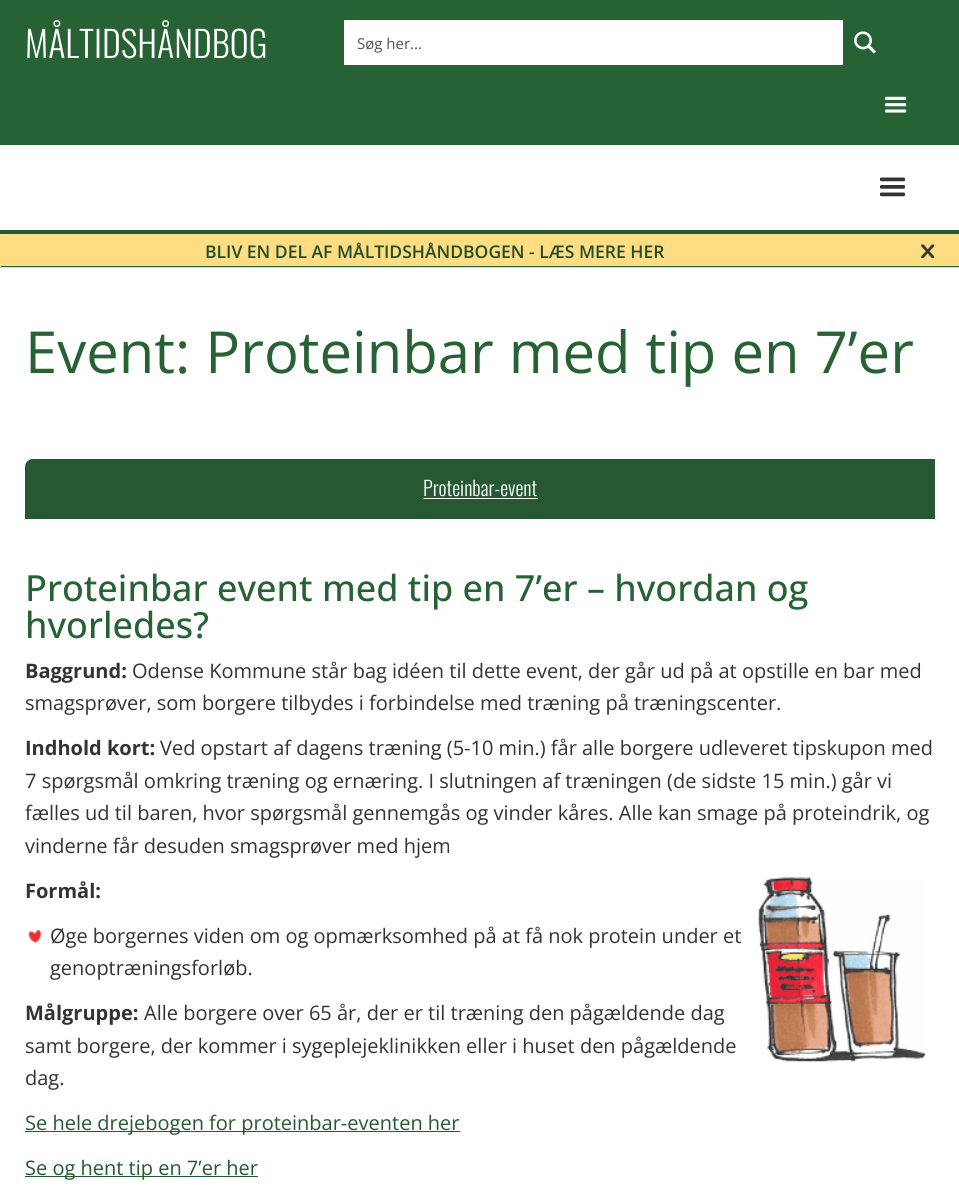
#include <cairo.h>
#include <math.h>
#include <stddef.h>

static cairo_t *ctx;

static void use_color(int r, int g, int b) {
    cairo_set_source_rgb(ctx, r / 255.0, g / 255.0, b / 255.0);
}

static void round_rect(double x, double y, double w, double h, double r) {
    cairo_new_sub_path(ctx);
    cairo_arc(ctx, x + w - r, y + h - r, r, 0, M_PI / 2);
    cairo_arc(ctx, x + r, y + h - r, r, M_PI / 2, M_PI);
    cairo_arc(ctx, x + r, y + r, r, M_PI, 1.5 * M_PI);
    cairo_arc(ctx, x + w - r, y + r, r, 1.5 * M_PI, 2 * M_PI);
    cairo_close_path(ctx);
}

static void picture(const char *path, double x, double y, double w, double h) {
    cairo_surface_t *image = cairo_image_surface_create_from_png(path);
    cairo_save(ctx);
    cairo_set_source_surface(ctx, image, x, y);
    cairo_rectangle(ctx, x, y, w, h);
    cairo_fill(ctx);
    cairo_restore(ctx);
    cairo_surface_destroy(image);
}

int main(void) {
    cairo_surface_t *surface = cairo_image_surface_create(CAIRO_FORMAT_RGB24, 959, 1190);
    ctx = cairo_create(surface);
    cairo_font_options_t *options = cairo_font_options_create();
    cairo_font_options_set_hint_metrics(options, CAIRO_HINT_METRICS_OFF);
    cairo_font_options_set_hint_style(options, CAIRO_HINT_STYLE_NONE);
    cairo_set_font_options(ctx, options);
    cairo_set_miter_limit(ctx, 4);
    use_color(255, 255, 255);
    cairo_paint(ctx);
    use_color(39, 98, 53);
    cairo_rectangle(ctx, 0, 0, 959, 145);
    cairo_fill(ctx);
    cairo_select_font_face(ctx, "Oswald Light", CAIRO_FONT_SLANT_NORMAL, CAIRO_FONT_WEIGHT_NORMAL);
    cairo_set_font_size(ctx, 36);
    use_color(255, 255, 255);
    cairo_move_to(ctx, 25, 58);
    cairo_show_text(ctx, "MÅLTIDSHÅNDBOG");
    cairo_rectangle(ctx, 344, 20, 499, 45);
    cairo_fill(ctx);
    cairo_select_font_face(ctx, "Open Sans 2", CAIRO_FONT_SLANT_NORMAL, CAIRO_FONT_WEIGHT_NORMAL);
    cairo_set_font_size(ctx, 15);
    use_color(82, 82, 82);
    cairo_move_to(ctx, 357, 49);
    cairo_show_text(ctx, "Søg her...");
    picture("img1.png", 854, 31, 22, 23);
    picture("img2.png", 885, 96, 22, 17);
    use_color(38, 89, 50);
    cairo_rectangle(ctx, 0, 230, 959, 4);
    cairo_fill(ctx);
    picture("img3.png", 880, 177, 25, 20);
    use_color(255, 221, 130);
    round_rect(0, 234, 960, 34, 1);
    cairo_fill(ctx);
    use_color(39, 98, 53);
    cairo_rectangle(ctx, 1, 266, 958, 1);
    cairo_fill(ctx);
    cairo_select_font_face(ctx, "Open Sans SemiBold", CAIRO_FONT_SLANT_NORMAL, CAIRO_FONT_WEIGHT_NORMAL);
    cairo_set_font_size(ctx, 17.5);
    use_color(34, 77, 44);
    cairo_move_to(ctx, 205, 258);
    cairo_show_text(ctx, "BLIV EN DEL AF MÅLTIDSHÅNDBOGEN - LÆS MERE HER");
    picture("img4.png", 920, 244, 15, 14);
    cairo_select_font_face(ctx, "Open Sans", CAIRO_FONT_SLANT_NORMAL, CAIRO_FONT_WEIGHT_NORMAL);
    cairo_set_font_size(ctx, 58);
    use_color(39, 98, 53);
    cairo_move_to(ctx, 25, 373);
    cairo_show_text(ctx, "Event: Proteinbar med tip en 7’er");
    use_color(38, 89, 50);
    cairo_new_path(ctx);
    cairo_move_to(ctx, 33, 459);
    cairo_line_to(ctx, 935, 459);
    cairo_line_to(ctx, 935, 519);
    cairo_line_to(ctx, 25, 519);
    cairo_line_to(ctx, 25, 467);
    cairo_curve_to(ctx, 25, 462.5, 28.5, 459, 33, 459);
    cairo_close_path(ctx);
    cairo_fill(ctx);
    cairo_select_font_face(ctx, "Oswald Light", CAIRO_FONT_SLANT_NORMAL, CAIRO_FONT_WEIGHT_NORMAL);
    cairo_set_font_size(ctx, 20);
    use_color(255, 255, 255);
    cairo_move_to(ctx, 423, 496);
    cairo_show_text(ctx, "Proteinbar-event");
    cairo_rectangle(ctx, 423, 498, 115, 1);
    cairo_fill(ctx);
    cairo_select_font_face(ctx, "Open Sans Medium", CAIRO_FONT_SLANT_NORMAL, CAIRO_FONT_WEIGHT_NORMAL);
    cairo_set_font_size(ctx, 36);
    use_color(39, 98, 53);
    cairo_move_to(ctx, 25, 601);
    cairo_show_text(ctx, "Proteinbar event med tip en 7’er – hvordan og");
    cairo_move_to(ctx, 25, 638);
    cairo_show_text(ctx, "hvorledes?");
    cairo_select_font_face(ctx, "Open Sans", CAIRO_FONT_SLANT_NORMAL, CAIRO_FONT_WEIGHT_BOLD);
    cairo_set_font_size(ctx, 20);
    use_color(51, 51, 51);
    cairo_move_to(ctx, 25, 678);
    cairo_show_text(ctx, "Baggrund:");
    cairo_select_font_face(ctx, "Open Sans", CAIRO_FONT_SLANT_NORMAL, CAIRO_FONT_WEIGHT_NORMAL);
    cairo_move_to(ctx, 132, 678);
    cairo_show_text(ctx, "Odense Kommune står bag idéen til dette event, der går ud på at opstille en bar med");
    cairo_move_to(ctx, 25, 710);
    cairo_show_text(ctx, "smagsprøver, som borgere tilbydes i forbindelse med træning på træningscenter.");
    cairo_select_font_face(ctx, "Open Sans", CAIRO_FONT_SLANT_NORMAL, CAIRO_FONT_WEIGHT_BOLD);
    cairo_move_to(ctx, 25, 755);
    cairo_show_text(ctx, "Indhold kort:");
    cairo_select_font_face(ctx, "Open Sans", CAIRO_FONT_SLANT_NORMAL, CAIRO_FONT_WEIGHT_NORMAL);
    cairo_move_to(ctx, 160, 755);
    cairo_show_text(ctx, "Ved opstart af dagens træning (5-10 min.) får alle borgere udleveret tipskupon med");
    cairo_move_to(ctx, 25, 788);
    cairo_show_text(ctx, "7 spørgsmål omkring træning og ernæring. I slutningen af træningen (de sidste 15 min.) går vi");
    cairo_move_to(ctx, 25, 820);
    cairo_show_text(ctx, "fælles ud til baren, hvor spørgsmål gennemgås og vinder kåres. Alle kan smage på proteindrik, og");
    cairo_move_to(ctx, 25, 853);
    cairo_show_text(ctx, "vinderne får desuden smagsprøver med hjem");
    cairo_select_font_face(ctx, "Open Sans", CAIRO_FONT_SLANT_NORMAL, CAIRO_FONT_WEIGHT_BOLD);
    cairo_move_to(ctx, 25, 898);
    cairo_show_text(ctx, "Formål:");
    picture("img5.png", 758, 877, 168, 185);
    picture("img6.png", 28, 930, 14, 13);
    cairo_select_font_face(ctx, "Open Sans", CAIRO_FONT_SLANT_NORMAL, CAIRO_FONT_WEIGHT_NORMAL);
    cairo_move_to(ctx, 50, 943);
    cairo_show_text(ctx, "Øge borgernes viden om og opmærksomhed på at få nok protein under et");
    cairo_move_to(ctx, 50, 975);
    cairo_show_text(ctx, "genoptræningsforløb.");
    cairo_select_font_face(ctx, "Open Sans", CAIRO_FONT_SLANT_NORMAL, CAIRO_FONT_WEIGHT_BOLD);
    cairo_move_to(ctx, 25, 1020);
    cairo_show_text(ctx, "Målgruppe:");
    cairo_select_font_face(ctx, "Open Sans", CAIRO_FONT_SLANT_NORMAL, CAIRO_FONT_WEIGHT_NORMAL);
    cairo_move_to(ctx, 144, 1020);
    cairo_show_text(ctx, "Alle borgere over 65 år, der er til træning den pågældende dag");
    cairo_move_to(ctx, 25, 1053);
    cairo_show_text(ctx, "samt borgere, der kommer i sygeplejeklinikken eller i huset den pågældende");
    cairo_move_to(ctx, 25, 1085);
    cairo_show_text(ctx, "dag.");
    use_color(38, 89, 50);
    cairo_rectangle(ctx, 25, 1131, 435, 1);
    cairo_fill(ctx);
    cairo_move_to(ctx, 25, 1130);
    cairo_show_text(ctx, "Se hele drejebogen for proteinbar-eventen her");
    cairo_rectangle(ctx, 25, 1176, 233, 1);
    cairo_fill(ctx);
    cairo_move_to(ctx, 25, 1175);
    cairo_show_text(ctx, "Se og hent tip en 7’er her");
    cairo_surface_write_to_png(surface, "result.png");
    cairo_font_options_destroy(options);
    cairo_destroy(ctx);
    cairo_surface_destroy(surface);
    return 0;
}
